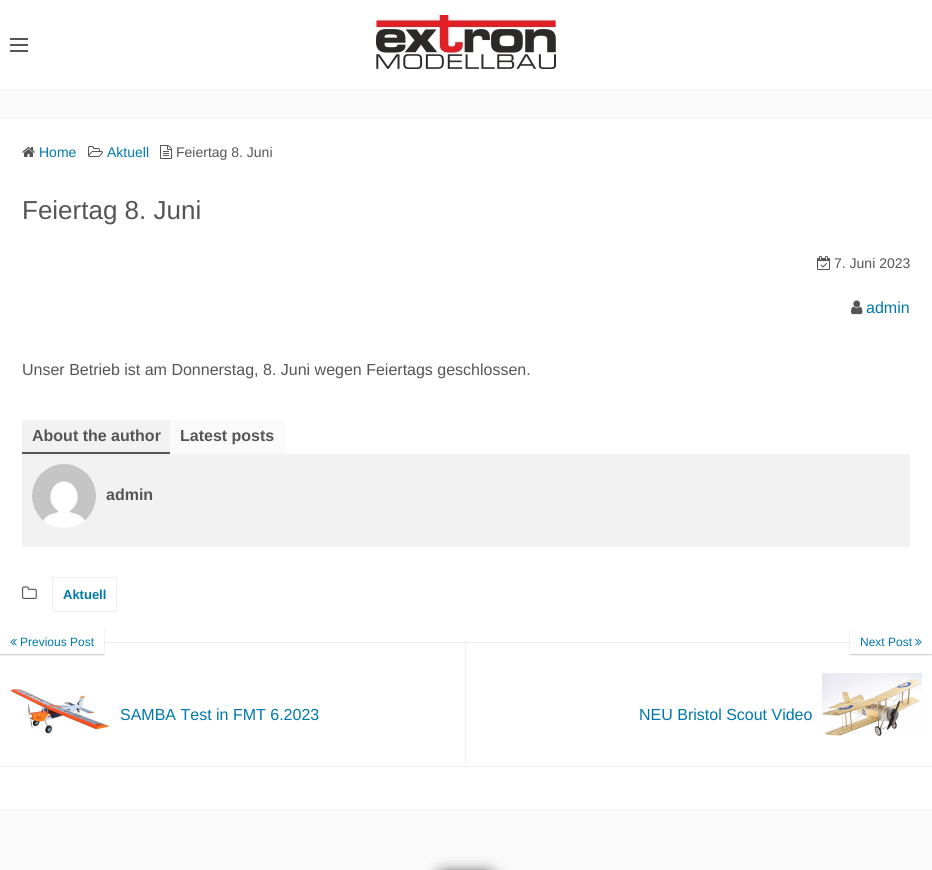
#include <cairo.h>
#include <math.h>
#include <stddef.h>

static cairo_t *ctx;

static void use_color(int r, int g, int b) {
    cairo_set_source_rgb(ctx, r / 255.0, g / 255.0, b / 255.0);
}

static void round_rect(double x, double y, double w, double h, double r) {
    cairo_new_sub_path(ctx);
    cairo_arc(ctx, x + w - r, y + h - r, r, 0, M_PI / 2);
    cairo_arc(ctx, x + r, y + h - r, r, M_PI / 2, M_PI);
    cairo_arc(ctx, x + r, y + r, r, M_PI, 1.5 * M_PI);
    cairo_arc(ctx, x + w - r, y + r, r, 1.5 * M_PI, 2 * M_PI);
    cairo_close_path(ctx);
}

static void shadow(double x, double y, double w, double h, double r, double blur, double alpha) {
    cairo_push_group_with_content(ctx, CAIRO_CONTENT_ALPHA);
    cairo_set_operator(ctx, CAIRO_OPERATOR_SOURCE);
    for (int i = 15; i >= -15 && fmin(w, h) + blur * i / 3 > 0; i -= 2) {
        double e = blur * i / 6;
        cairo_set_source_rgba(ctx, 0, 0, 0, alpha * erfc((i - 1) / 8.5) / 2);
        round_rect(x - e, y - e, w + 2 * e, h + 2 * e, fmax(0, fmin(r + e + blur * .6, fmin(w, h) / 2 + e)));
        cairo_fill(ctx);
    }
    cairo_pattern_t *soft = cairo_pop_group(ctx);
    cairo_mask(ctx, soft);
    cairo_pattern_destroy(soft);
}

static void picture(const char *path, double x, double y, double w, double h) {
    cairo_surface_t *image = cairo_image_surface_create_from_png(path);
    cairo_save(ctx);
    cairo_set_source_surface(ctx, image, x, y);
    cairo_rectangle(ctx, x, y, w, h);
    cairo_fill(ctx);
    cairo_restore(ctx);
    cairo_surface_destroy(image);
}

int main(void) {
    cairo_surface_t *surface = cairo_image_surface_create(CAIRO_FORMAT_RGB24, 932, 870);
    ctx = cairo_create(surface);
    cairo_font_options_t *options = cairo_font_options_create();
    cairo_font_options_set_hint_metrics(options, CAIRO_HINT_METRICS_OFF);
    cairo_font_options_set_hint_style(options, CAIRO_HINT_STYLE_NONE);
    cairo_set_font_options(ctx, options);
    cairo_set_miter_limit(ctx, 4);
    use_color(250, 250, 250);
    cairo_paint(ctx);
    use_color(255, 255, 255);
    cairo_rectangle(ctx, 0, 0, 932, 89);
    cairo_fill(ctx);
    use_color(85, 85, 85);
    cairo_rectangle(ctx, 10, 44, 18, 2);
    cairo_fill(ctx);
    cairo_rectangle(ctx, 10, 38, 18, 2);
    cairo_fill(ctx);
    cairo_rectangle(ctx, 10, 50, 18, 2);
    cairo_fill(ctx);
    picture("img1.png", 376, 15, 180, 54);
    use_color(255, 255, 255);
    cairo_rectangle(ctx, 0, 119, 932, 690);
    cairo_fill(ctx);
    picture("img2.png", 22, 147, 13, 10);
    cairo_select_font_face(ctx, "Liberation Sans", CAIRO_FONT_SLANT_NORMAL, CAIRO_FONT_WEIGHT_NORMAL);
    cairo_set_font_size(ctx, 14);
    use_color(0, 119, 170);
    cairo_move_to(ctx, 39, 157);
    cairo_show_text(ctx, "Home");
    picture("img3.png", 88, 146, 15, 11);
    cairo_move_to(ctx, 107, 157);
    cairo_show_text(ctx, "Aktuell");
    picture("img4.png", 160, 145, 12, 14);
    use_color(85, 85, 85);
    cairo_move_to(ctx, 176, 157);
    cairo_show_text(ctx, "Feiertag 8. Juni");
    cairo_set_font_size(ctx, 26);
    cairo_move_to(ctx, 22, 219);
    cairo_show_text(ctx, "Feiertag 8. Juni");
    picture("img5.png", 817, 256, 13, 14);
    cairo_set_font_size(ctx, 14);
    cairo_move_to(ctx, 834, 268);
    cairo_show_text(ctx, "7. Juni 2023");
    picture("img6.png", 851, 300, 12, 15);
    cairo_set_font_size(ctx, 16);
    use_color(0, 119, 170);
    cairo_move_to(ctx, 866, 313);
    cairo_show_text(ctx, "admin");
    use_color(85, 85, 85);
    cairo_move_to(ctx, 22, 375);
    cairo_show_text(ctx, "Unser Betrieb ist am Donnerstag, 8. Juni wegen Feiertags geschlossen.");
    use_color(242, 242, 242);
    cairo_new_path(ctx);
    cairo_move_to(ctx, 24, 420);
    cairo_line_to(ctx, 171, 420);
    cairo_line_to(ctx, 171, 454);
    cairo_line_to(ctx, 22, 454);
    cairo_line_to(ctx, 22, 422);
    cairo_curve_to(ctx, 22, 421, 23, 420, 24, 420);
    cairo_close_path(ctx);
    cairo_fill(ctx);
    use_color(85, 85, 85);
    cairo_rectangle(ctx, 22, 452, 149, 2);
    cairo_fill(ctx);
    cairo_select_font_face(ctx, "Liberation Sans", CAIRO_FONT_SLANT_NORMAL, CAIRO_FONT_WEIGHT_BOLD);
    cairo_move_to(ctx, 32, 441);
    cairo_show_text(ctx, "About the author");
    use_color(250, 250, 250);
    cairo_new_path(ctx);
    cairo_move_to(ctx, 170, 420);
    cairo_line_to(ctx, 283, 420);
    cairo_curve_to(ctx, 284, 420, 285, 421, 285, 422);
    cairo_line_to(ctx, 285, 454);
    cairo_line_to(ctx, 170, 454);
    cairo_close_path(ctx);
    cairo_fill(ctx);
    use_color(85, 85, 85);
    cairo_move_to(ctx, 180, 441);
    cairo_show_text(ctx, "Latest posts");
    use_color(242, 242, 242);
    cairo_new_path(ctx);
    cairo_move_to(ctx, 22, 454);
    cairo_line_to(ctx, 908, 454);
    cairo_curve_to(ctx, 909, 454, 910, 455, 910, 456);
    cairo_line_to(ctx, 910, 545);
    cairo_curve_to(ctx, 910, 546, 909, 547, 908, 547);
    cairo_line_to(ctx, 24, 547);
    cairo_curve_to(ctx, 23, 547, 22, 546, 22, 545);
    cairo_close_path(ctx);
    cairo_fill(ctx);
    picture("img7.png", 32, 464, 64, 64);
    use_color(85, 85, 85);
    cairo_move_to(ctx, 106, 500);
    cairo_show_text(ctx, "admin");
    picture("img8.png", 22, 586, 15, 13);
    round_rect(52.5, 577.5, 64, 34, 1.5);
    use_color(238, 238, 238);
    cairo_set_line_width(ctx, 1);
    cairo_stroke(ctx);
    cairo_set_font_size(ctx, 13);
    use_color(0, 119, 170);
    cairo_move_to(ctx, 63, 599);
    cairo_show_text(ctx, "Aktuell");
    use_color(238, 238, 238);
    cairo_rectangle(ctx, 104, 642, 746, 1);
    cairo_fill(ctx);
    cairo_rectangle(ctx, 465, 642, 1, 125);
    cairo_fill(ctx);
    cairo_rectangle(ctx, 0, 766, 932, 1);
    cairo_fill(ctx);
    use_color(0, 0, 0);
    shadow(0, 629, 104, 26, 0, 0.5, 0.2);
    use_color(255, 255, 255);
    cairo_rectangle(ctx, 0, 628, 104, 26);
    cairo_fill(ctx);
    picture("img9.png", 10, 638, 7, 8);
    cairo_select_font_face(ctx, "Liberation Sans", CAIRO_FONT_SLANT_NORMAL, CAIRO_FONT_WEIGHT_NORMAL);
    cairo_set_font_size(ctx, 12);
    use_color(0, 119, 170);
    cairo_move_to(ctx, 20, 646);
    cairo_show_text(ctx, "Previous Post");
    picture("img10.png", 10, 689, 100, 45);
    cairo_set_font_size(ctx, 16);
    cairo_move_to(ctx, 120, 720);
    cairo_show_text(ctx, "SAMBA Test in FMT 6.2023");
    use_color(0, 0, 0);
    shadow(850, 629, 82, 26, 0, 0.5, 0.2);
    use_color(255, 255, 255);
    cairo_rectangle(ctx, 850, 628, 82, 26);
    cairo_fill(ctx);
    cairo_set_font_size(ctx, 12);
    use_color(0, 119, 170);
    cairo_move_to(ctx, 860, 646);
    cairo_show_text(ctx, "Next Post");
    picture("img11.png", 915, 638, 7, 8);
    cairo_set_font_size(ctx, 16);
    cairo_move_to(ctx, 639, 720);
    cairo_show_text(ctx, "NEU Bristol Scout Video");
    picture("img12.png", 822, 673, 100, 63);
    use_color(0, 0, 0);
    shadow(436, 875, 60, 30, 30, 8, 1);
    cairo_surface_write_to_png(surface, "result.png");
    cairo_font_options_destroy(options);
    cairo_destroy(ctx);
    cairo_surface_destroy(surface);
    return 0;
}
